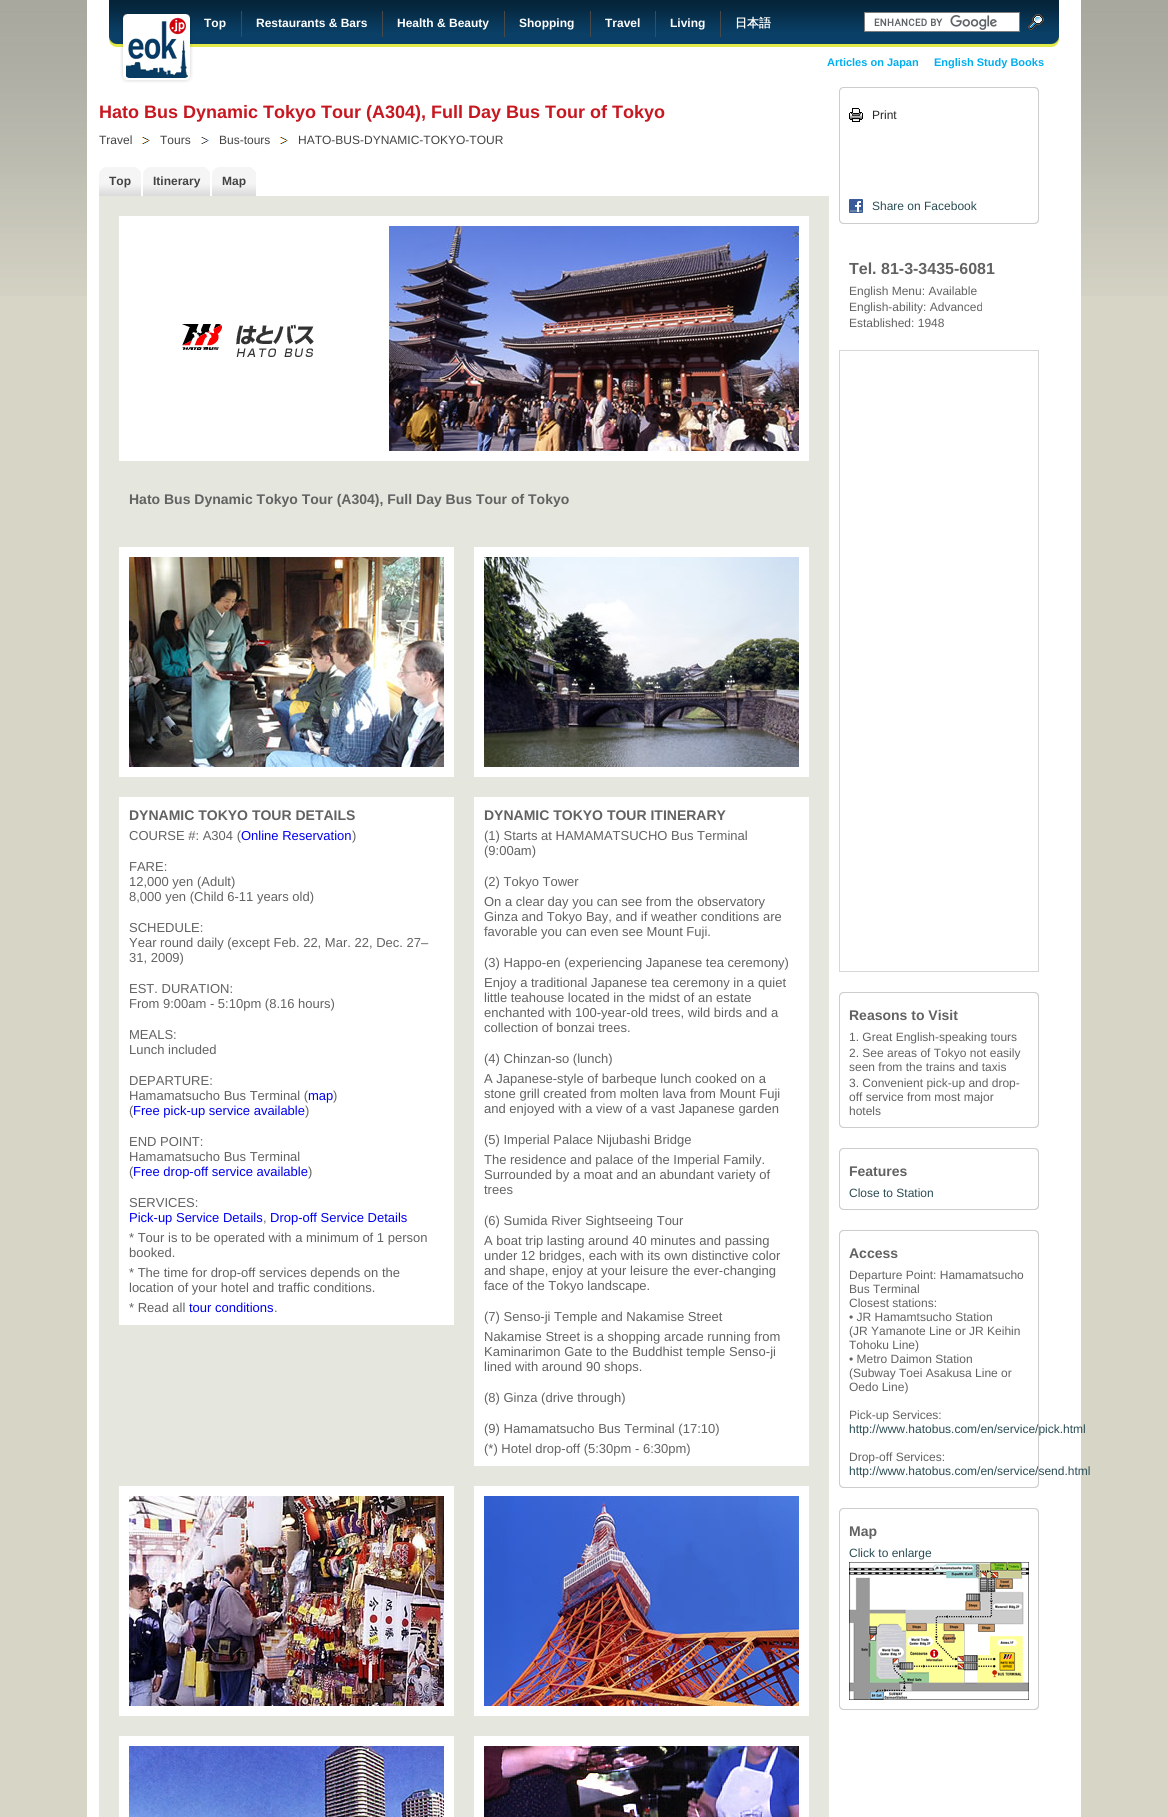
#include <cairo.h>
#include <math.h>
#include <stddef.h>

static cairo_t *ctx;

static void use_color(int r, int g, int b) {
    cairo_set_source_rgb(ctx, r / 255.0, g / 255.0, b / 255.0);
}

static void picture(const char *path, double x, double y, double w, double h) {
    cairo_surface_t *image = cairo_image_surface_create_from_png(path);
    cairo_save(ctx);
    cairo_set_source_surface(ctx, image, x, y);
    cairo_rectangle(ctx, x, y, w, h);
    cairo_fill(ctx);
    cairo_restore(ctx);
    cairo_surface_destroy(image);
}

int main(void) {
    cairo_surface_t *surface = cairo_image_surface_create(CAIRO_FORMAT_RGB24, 1168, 1817);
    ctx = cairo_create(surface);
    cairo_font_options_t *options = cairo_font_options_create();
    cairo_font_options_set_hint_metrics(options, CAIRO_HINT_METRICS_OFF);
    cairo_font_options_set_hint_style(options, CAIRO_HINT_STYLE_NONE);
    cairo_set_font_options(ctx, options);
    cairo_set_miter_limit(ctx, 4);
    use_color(215, 214, 198);
    cairo_paint(ctx);
    picture("img1.png", 0, 0, 1168, 296);
    use_color(255, 255, 255);
    cairo_rectangle(ctx, 87, 0, 994, 1817);
    cairo_fill(ctx);
    picture("img3.png", 109, 0, 950, 47);
    picture("img2.png", 120, 13, 73, 70);
    cairo_select_font_face(ctx, "Liberation Sans", CAIRO_FONT_SLANT_NORMAL, CAIRO_FONT_WEIGHT_BOLD);
    cairo_set_font_size(ctx, 12);
    cairo_move_to(ctx, 204, 27);
    cairo_show_text(ctx, "Top");
    use_color(73, 73, 73);
    cairo_rectangle(ctx, 241, 11, 1, 26);
    cairo_fill(ctx);
    use_color(255, 255, 255);
    cairo_move_to(ctx, 256, 27);
    cairo_show_text(ctx, "Restaurants & Bars");
    use_color(73, 73, 73);
    cairo_rectangle(ctx, 382, 11, 1, 26);
    cairo_fill(ctx);
    use_color(255, 255, 255);
    cairo_move_to(ctx, 397, 27);
    cairo_show_text(ctx, "Health & Beauty");
    use_color(73, 73, 73);
    cairo_rectangle(ctx, 504, 11, 1, 26);
    cairo_fill(ctx);
    use_color(255, 255, 255);
    cairo_move_to(ctx, 519, 27);
    cairo_show_text(ctx, "Shopping");
    use_color(73, 73, 73);
    cairo_rectangle(ctx, 590, 11, 1, 26);
    cairo_fill(ctx);
    use_color(255, 255, 255);
    cairo_move_to(ctx, 605, 27);
    cairo_show_text(ctx, "Travel");
    use_color(73, 73, 73);
    cairo_rectangle(ctx, 655, 11, 1, 26);
    cairo_fill(ctx);
    use_color(255, 255, 255);
    cairo_move_to(ctx, 670, 27);
    cairo_show_text(ctx, "Living");
    use_color(73, 73, 73);
    cairo_rectangle(ctx, 720, 11, 1, 26);
    cairo_fill(ctx);
    cairo_select_font_face(ctx, "WenQuanYi Zen Hei", CAIRO_FONT_SLANT_NORMAL, CAIRO_FONT_WEIGHT_BOLD);
    use_color(255, 255, 255);
    cairo_move_to(ctx, 735, 27);
    cairo_show_text(ctx, "日本語");
    cairo_rectangle(ctx, 865, 13, 154, 18);
    cairo_fill(ctx);
    picture("img4.png", 874, 15, 123, 15);
    cairo_rectangle(ctx, 864.5, 12.5, 155, 19);
    use_color(125, 125, 125);
    cairo_set_line_width(ctx, 1);
    cairo_stroke(ctx);
    picture("img5.png", 1028, 14, 16, 16);
    cairo_select_font_face(ctx, "Liberation Sans", CAIRO_FONT_SLANT_NORMAL, CAIRO_FONT_WEIGHT_BOLD);
    cairo_set_font_size(ctx, 11);
    use_color(0, 174, 239);
    cairo_move_to(ctx, 827, 66);
    cairo_show_text(ctx, "Articles on Japan");
    cairo_move_to(ctx, 934, 66);
    cairo_show_text(ctx, "English Study Books");
    cairo_set_font_size(ctx, 18);
    use_color(199, 24, 33);
    cairo_move_to(ctx, 99, 118);
    cairo_show_text(ctx, "Hato Bus Dynamic Tokyo Tour (A304), Full Day Bus Tour of Tokyo");
    cairo_select_font_face(ctx, "Liberation Sans", CAIRO_FONT_SLANT_NORMAL, CAIRO_FONT_WEIGHT_NORMAL);
    cairo_set_font_size(ctx, 12);
    use_color(66, 66, 66);
    cairo_move_to(ctx, 99, 144);
    cairo_show_text(ctx, "Travel");
    picture("img6.png", 142, 137, 8, 7);
    cairo_move_to(ctx, 160, 144);
    cairo_show_text(ctx, "Tours");
    picture("img6.png", 201, 137, 8, 7);
    cairo_move_to(ctx, 219, 144);
    cairo_show_text(ctx, "Bus-tours");
    picture("img6.png", 280, 137, 8, 7);
    cairo_move_to(ctx, 298, 144);
    cairo_show_text(ctx, "HATO-BUS-DYNAMIC-TOKYO-TOUR");
    picture("img7.png", 99, 167, 42, 29);
    picture("img8.png", 136, 167, 5, 5);
    cairo_select_font_face(ctx, "Liberation Sans", CAIRO_FONT_SLANT_NORMAL, CAIRO_FONT_WEIGHT_BOLD);
    cairo_move_to(ctx, 109, 185);
    cairo_show_text(ctx, "Top");
    picture("img9.png", 143, 167, 67, 29);
    picture("img8.png", 205, 167, 5, 5);
    cairo_move_to(ctx, 153, 185);
    cairo_show_text(ctx, "Itinerary");
    picture("img10.png", 212, 167, 44, 29);
    picture("img8.png", 251, 167, 5, 5);
    cairo_move_to(ctx, 222, 185);
    cairo_show_text(ctx, "Map");
    use_color(229, 230, 222);
    cairo_rectangle(ctx, 99, 196, 730, 1621);
    cairo_fill(ctx);
    use_color(255, 255, 255);
    cairo_rectangle(ctx, 119, 216, 690, 245);
    cairo_fill(ctx);
    picture("img11.png", 182, 324, 132, 33);
    picture("img12.png", 389, 226, 410, 225);
    cairo_set_font_size(ctx, 14);
    use_color(98, 98, 98);
    cairo_move_to(ctx, 129, 504);
    cairo_show_text(ctx, "Hato Bus Dynamic Tokyo Tour (A304), Full Day Bus Tour of Tokyo");
    use_color(255, 255, 255);
    cairo_rectangle(ctx, 119, 547, 335, 230);
    cairo_fill(ctx);
    picture("img13.png", 129, 557, 315, 210);
    cairo_rectangle(ctx, 474, 547, 335, 230);
    cairo_fill(ctx);
    picture("img14.png", 484, 557, 315, 210);
    cairo_rectangle(ctx, 119, 797, 335, 528);
    cairo_fill(ctx);
    use_color(98, 98, 98);
    cairo_move_to(ctx, 129, 820);
    cairo_show_text(ctx, "DYNAMIC TOKYO TOUR DETAILS");
    cairo_select_font_face(ctx, "Liberation Sans", CAIRO_FONT_SLANT_NORMAL, CAIRO_FONT_WEIGHT_NORMAL);
    cairo_set_font_size(ctx, 13);
    cairo_move_to(ctx, 129, 840);
    cairo_show_text(ctx, "COURSE #: A304 (");
    use_color(0, 0, 238);
    cairo_move_to(ctx, 241, 840);
    cairo_show_text(ctx, "Online Reservation");
    use_color(98, 98, 98);
    cairo_move_to(ctx, 352, 840);
    cairo_show_text(ctx, ")");
    cairo_move_to(ctx, 129, 871);
    cairo_show_text(ctx, "FARE:");
    cairo_move_to(ctx, 129, 886);
    cairo_show_text(ctx, "12,000 yen (Adult)");
    cairo_move_to(ctx, 129, 901);
    cairo_show_text(ctx, "8,000 yen (Child 6-11 years old)");
    cairo_move_to(ctx, 129, 932);
    cairo_show_text(ctx, "SCHEDULE:");
    cairo_move_to(ctx, 129, 947);
    cairo_show_text(ctx, "Year round daily (except Feb. 22, Mar. 22, Dec. 27–");
    cairo_move_to(ctx, 129, 962);
    cairo_show_text(ctx, "31, 2009)");
    cairo_move_to(ctx, 129, 993);
    cairo_show_text(ctx, "EST. DURATION:");
    cairo_move_to(ctx, 129, 1008);
    cairo_show_text(ctx, "From 9:00am - 5:10pm (8.16 hours)");
    cairo_move_to(ctx, 129, 1039);
    cairo_show_text(ctx, "MEALS:");
    cairo_move_to(ctx, 129, 1054);
    cairo_show_text(ctx, "Lunch included");
    cairo_move_to(ctx, 129, 1085);
    cairo_show_text(ctx, "DEPARTURE:");
    cairo_move_to(ctx, 129, 1100);
    cairo_show_text(ctx, "Hamamatsucho Bus Terminal (");
    use_color(0, 0, 238);
    cairo_move_to(ctx, 308, 1100);
    cairo_show_text(ctx, "map");
    use_color(98, 98, 98);
    cairo_move_to(ctx, 333, 1100);
    cairo_show_text(ctx, ")");
    cairo_move_to(ctx, 129, 1115);
    cairo_show_text(ctx, "(");
    use_color(0, 0, 238);
    cairo_move_to(ctx, 133, 1115);
    cairo_show_text(ctx, "Free pick-up service available");
    use_color(98, 98, 98);
    cairo_move_to(ctx, 305, 1115);
    cairo_show_text(ctx, ")");
    cairo_move_to(ctx, 129, 1146);
    cairo_show_text(ctx, "END POINT:");
    cairo_move_to(ctx, 129, 1161);
    cairo_show_text(ctx, "Hamamatsucho Bus Terminal");
    cairo_move_to(ctx, 129, 1176);
    cairo_show_text(ctx, "(");
    use_color(0, 0, 238);
    cairo_move_to(ctx, 133, 1176);
    cairo_show_text(ctx, "Free drop-off service available");
    use_color(98, 98, 98);
    cairo_move_to(ctx, 308, 1176);
    cairo_show_text(ctx, ")");
    cairo_move_to(ctx, 129, 1207);
    cairo_show_text(ctx, "SERVICES:");
    use_color(0, 0, 238);
    cairo_move_to(ctx, 129, 1222);
    cairo_show_text(ctx, "Pick-up Service Details");
    use_color(98, 98, 98);
    cairo_move_to(ctx, 263, 1222);
    cairo_show_text(ctx, ",");
    use_color(0, 0, 238);
    cairo_move_to(ctx, 270, 1222);
    cairo_show_text(ctx, "Drop-off Service Details");
    use_color(98, 98, 98);
    cairo_move_to(ctx, 129, 1242);
    cairo_show_text(ctx, "* Tour is to be operated with a minimum of 1 person");
    cairo_move_to(ctx, 129, 1257);
    cairo_show_text(ctx, "booked.");
    cairo_move_to(ctx, 129, 1277);
    cairo_show_text(ctx, "* The time for drop-off services depends on the");
    cairo_move_to(ctx, 129, 1292);
    cairo_show_text(ctx, "location of your hotel and traffic conditions.");
    cairo_move_to(ctx, 129, 1312);
    cairo_show_text(ctx, "* Read all");
    use_color(0, 0, 238);
    cairo_move_to(ctx, 189, 1312);
    cairo_show_text(ctx, "tour conditions");
    use_color(98, 98, 98);
    cairo_move_to(ctx, 274, 1312);
    cairo_show_text(ctx, ".");
    use_color(255, 255, 255);
    cairo_rectangle(ctx, 474, 797, 335, 669);
    cairo_fill(ctx);
    cairo_select_font_face(ctx, "Liberation Sans", CAIRO_FONT_SLANT_NORMAL, CAIRO_FONT_WEIGHT_BOLD);
    cairo_set_font_size(ctx, 14);
    use_color(98, 98, 98);
    cairo_move_to(ctx, 484, 820);
    cairo_show_text(ctx, "DYNAMIC TOKYO TOUR ITINERARY");
    cairo_select_font_face(ctx, "Liberation Sans", CAIRO_FONT_SLANT_NORMAL, CAIRO_FONT_WEIGHT_NORMAL);
    cairo_set_font_size(ctx, 13);
    cairo_move_to(ctx, 484, 840);
    cairo_show_text(ctx, "(1) Starts at HAMAMATSUCHO Bus Terminal");
    cairo_move_to(ctx, 484, 855);
    cairo_show_text(ctx, "(9:00am)");
    cairo_move_to(ctx, 484, 886);
    cairo_show_text(ctx, "(2) Tokyo Tower");
    cairo_move_to(ctx, 484, 906);
    cairo_show_text(ctx, "On a clear day you can see from the observatory");
    cairo_move_to(ctx, 484, 921);
    cairo_show_text(ctx, "Ginza and Tokyo Bay, and if weather conditions are");
    cairo_move_to(ctx, 484, 936);
    cairo_show_text(ctx, "favorable you can even see Mount Fuji.");
    cairo_move_to(ctx, 484, 967);
    cairo_show_text(ctx, "(3) Happo-en (experiencing Japanese tea ceremony)");
    cairo_move_to(ctx, 484, 987);
    cairo_show_text(ctx, "Enjoy a traditional Japanese tea ceremony in a quiet");
    cairo_move_to(ctx, 484, 1002);
    cairo_show_text(ctx, "little teahouse located in the midst of an estate");
    cairo_move_to(ctx, 484, 1017);
    cairo_show_text(ctx, "enchanted with 100-year-old trees, wild birds and a");
    cairo_move_to(ctx, 484, 1032);
    cairo_show_text(ctx, "collection of bonzai trees.");
    cairo_move_to(ctx, 484, 1063);
    cairo_show_text(ctx, "(4) Chinzan-so (lunch)");
    cairo_move_to(ctx, 484, 1083);
    cairo_show_text(ctx, "A Japanese-style of barbeque lunch cooked on a");
    cairo_move_to(ctx, 484, 1098);
    cairo_show_text(ctx, "stone grill created from molten lava from Mount Fuji");
    cairo_move_to(ctx, 484, 1113);
    cairo_show_text(ctx, "and enjoyed with a view of a vast Japanese garden");
    cairo_move_to(ctx, 484, 1144);
    cairo_show_text(ctx, "(5) Imperial Palace Nijubashi Bridge");
    cairo_move_to(ctx, 484, 1164);
    cairo_show_text(ctx, "The residence and palace of the Imperial Family.");
    cairo_move_to(ctx, 484, 1179);
    cairo_show_text(ctx, "Surrounded by a moat and an abundant variety of");
    cairo_move_to(ctx, 484, 1194);
    cairo_show_text(ctx, "trees");
    cairo_move_to(ctx, 484, 1225);
    cairo_show_text(ctx, "(6) Sumida River Sightseeing Tour");
    cairo_move_to(ctx, 484, 1245);
    cairo_show_text(ctx, "A boat trip lasting around 40 minutes and passing");
    cairo_move_to(ctx, 484, 1260);
    cairo_show_text(ctx, "under 12 bridges, each with its own distinctive color");
    cairo_move_to(ctx, 484, 1275);
    cairo_show_text(ctx, "and shape, enjoy at your leisure the ever-changing");
    cairo_move_to(ctx, 484, 1290);
    cairo_show_text(ctx, "face of the Tokyo landscape.");
    cairo_move_to(ctx, 484, 1321);
    cairo_show_text(ctx, "(7) Senso-ji Temple and Nakamise Street");
    cairo_move_to(ctx, 484, 1341);
    cairo_show_text(ctx, "Nakamise Street is a shopping arcade running from");
    cairo_move_to(ctx, 484, 1356);
    cairo_show_text(ctx, "Kaminarimon Gate to the Buddhist temple Senso-ji");
    cairo_move_to(ctx, 484, 1371);
    cairo_show_text(ctx, "lined with around 90 shops.");
    cairo_move_to(ctx, 484, 1402);
    cairo_show_text(ctx, "(8) Ginza (drive through)");
    cairo_move_to(ctx, 484, 1433);
    cairo_show_text(ctx, "(9) Hamamatsucho Bus Terminal (17:10)");
    cairo_move_to(ctx, 484, 1453);
    cairo_show_text(ctx, "(*) Hotel drop-off (5:30pm - 6:30pm)");
    use_color(255, 255, 255);
    cairo_rectangle(ctx, 119, 1486, 335, 230);
    cairo_fill(ctx);
    picture("img15.png", 129, 1496, 315, 210);
    cairo_rectangle(ctx, 474, 1486, 335, 230);
    cairo_fill(ctx);
    picture("img16.png", 484, 1496, 315, 210);
    cairo_rectangle(ctx, 119, 1736, 335, 81);
    cairo_fill(ctx);
    picture("img17.png", 129, 1746, 315, 71);
    cairo_rectangle(ctx, 474, 1736, 335, 81);
    cairo_fill(ctx);
    picture("img18.png", 484, 1746, 315, 71);
    picture("img19.png", 839, 87, 200, 133);
    picture("img20.png", 839, 220, 200, 4);
    picture("img21.png", 849, 108, 14, 14);
    cairo_set_font_size(ctx, 12);
    use_color(37, 37, 37);
    cairo_move_to(ctx, 872, 119);
    cairo_show_text(ctx, "Print");
    picture("img22.png", 849, 199, 14, 14);
    use_color(42, 76, 83);
    cairo_move_to(ctx, 872, 210);
    cairo_show_text(ctx, "Share on Facebook");
    cairo_select_font_face(ctx, "Liberation Sans", CAIRO_FONT_SLANT_NORMAL, CAIRO_FONT_WEIGHT_BOLD);
    cairo_set_font_size(ctx, 16);
    use_color(98, 98, 98);
    cairo_move_to(ctx, 849, 274);
    cairo_show_text(ctx, "Tel. 81-3-3435-6081");
    cairo_select_font_face(ctx, "Liberation Sans", CAIRO_FONT_SLANT_NORMAL, CAIRO_FONT_WEIGHT_NORMAL);
    cairo_set_font_size(ctx, 12);
    cairo_move_to(ctx, 849, 295);
    cairo_show_text(ctx, "English Menu: Available");
    cairo_move_to(ctx, 849, 311);
    cairo_show_text(ctx, "English-ability: Advanced");
    cairo_move_to(ctx, 849, 327);
    cairo_show_text(ctx, "Established: 1948");
    cairo_rectangle(ctx, 839.5, 350.5, 199, 621);
    use_color(215, 215, 215);
    cairo_stroke(ctx);
    picture("img23.png", 839, 992, 200, 132);
    picture("img20.png", 839, 1124, 200, 4);
    cairo_select_font_face(ctx, "Liberation Sans", CAIRO_FONT_SLANT_NORMAL, CAIRO_FONT_WEIGHT_BOLD);
    cairo_set_font_size(ctx, 14);
    use_color(98, 98, 98);
    cairo_move_to(ctx, 849, 1020);
    cairo_show_text(ctx, "Reasons to Visit");
    cairo_select_font_face(ctx, "Liberation Sans", CAIRO_FONT_SLANT_NORMAL, CAIRO_FONT_WEIGHT_NORMAL);
    cairo_set_font_size(ctx, 12);
    cairo_move_to(ctx, 849, 1041);
    cairo_show_text(ctx, "1. Great English-speaking tours");
    cairo_move_to(ctx, 849, 1057);
    cairo_show_text(ctx, "2. See areas of Tokyo not easily");
    cairo_move_to(ctx, 849, 1071);
    cairo_show_text(ctx, "seen from the trains and taxis");
    cairo_move_to(ctx, 849, 1087);
    cairo_show_text(ctx, "3. Convenient pick-up and drop-");
    cairo_move_to(ctx, 849, 1101);
    cairo_show_text(ctx, "off service from most major");
    cairo_move_to(ctx, 849, 1115);
    cairo_show_text(ctx, "hotels");
    picture("img24.png", 839, 1148, 200, 58);
    picture("img20.png", 839, 1206, 200, 4);
    cairo_select_font_face(ctx, "Liberation Sans", CAIRO_FONT_SLANT_NORMAL, CAIRO_FONT_WEIGHT_BOLD);
    cairo_set_font_size(ctx, 14);
    cairo_move_to(ctx, 849, 1176);
    cairo_show_text(ctx, "Features");
    cairo_select_font_face(ctx, "Liberation Sans", CAIRO_FONT_SLANT_NORMAL, CAIRO_FONT_WEIGHT_NORMAL);
    cairo_set_font_size(ctx, 12);
    use_color(42, 76, 83);
    cairo_move_to(ctx, 849, 1197);
    cairo_show_text(ctx, "Close to Station");
    picture("img25.png", 839, 1230, 200, 254);
    picture("img20.png", 839, 1484, 200, 4);
    cairo_select_font_face(ctx, "Liberation Sans", CAIRO_FONT_SLANT_NORMAL, CAIRO_FONT_WEIGHT_BOLD);
    cairo_set_font_size(ctx, 14);
    use_color(98, 98, 98);
    cairo_move_to(ctx, 849, 1258);
    cairo_show_text(ctx, "Access");
    cairo_select_font_face(ctx, "Liberation Sans", CAIRO_FONT_SLANT_NORMAL, CAIRO_FONT_WEIGHT_NORMAL);
    cairo_set_font_size(ctx, 12);
    cairo_move_to(ctx, 849, 1279);
    cairo_show_text(ctx, "Departure Point: Hamamatsucho");
    cairo_move_to(ctx, 849, 1293);
    cairo_show_text(ctx, "Bus Terminal");
    cairo_move_to(ctx, 849, 1307);
    cairo_show_text(ctx, "Closest stations:");
    cairo_move_to(ctx, 849, 1321);
    cairo_show_text(ctx, "• JR Hamamtsucho Station");
    cairo_move_to(ctx, 849, 1335);
    cairo_show_text(ctx, "(JR Yamanote Line or JR Keihin");
    cairo_move_to(ctx, 849, 1349);
    cairo_show_text(ctx, "Tohoku Line)");
    cairo_move_to(ctx, 849, 1363);
    cairo_show_text(ctx, "• Metro Daimon Station");
    cairo_move_to(ctx, 849, 1377);
    cairo_show_text(ctx, "(Subway Toei Asakusa Line or");
    cairo_move_to(ctx, 849, 1391);
    cairo_show_text(ctx, "Oedo Line)");
    cairo_move_to(ctx, 849, 1419);
    cairo_show_text(ctx, "Pick-up Services:");
    use_color(42, 76, 83);
    cairo_move_to(ctx, 849, 1433);
    cairo_show_text(ctx, "http://www.hatobus.com/en/service/pick.html");
    use_color(98, 98, 98);
    cairo_move_to(ctx, 849, 1461);
    cairo_show_text(ctx, "Drop-off Services:");
    use_color(42, 76, 83);
    cairo_move_to(ctx, 849, 1475);
    cairo_show_text(ctx, "http://www.hatobus.com/en/service/send.html");
    picture("img26.png", 839, 1508, 200, 198);
    picture("img20.png", 839, 1706, 200, 4);
    cairo_select_font_face(ctx, "Liberation Sans", CAIRO_FONT_SLANT_NORMAL, CAIRO_FONT_WEIGHT_BOLD);
    cairo_set_font_size(ctx, 14);
    use_color(98, 98, 98);
    cairo_move_to(ctx, 849, 1536);
    cairo_show_text(ctx, "Map");
    cairo_select_font_face(ctx, "Liberation Sans", CAIRO_FONT_SLANT_NORMAL, CAIRO_FONT_WEIGHT_NORMAL);
    cairo_set_font_size(ctx, 12);
    use_color(42, 76, 83);
    cairo_move_to(ctx, 849, 1557);
    cairo_show_text(ctx, "Click to enlarge");
    picture("img27.png", 849, 1562, 180, 138);
    cairo_surface_write_to_png(surface, "result.png");
    cairo_font_options_destroy(options);
    cairo_destroy(ctx);
    cairo_surface_destroy(surface);
    return 0;
}
